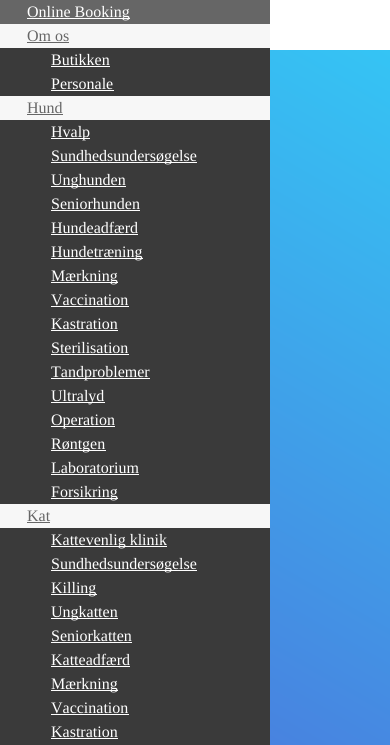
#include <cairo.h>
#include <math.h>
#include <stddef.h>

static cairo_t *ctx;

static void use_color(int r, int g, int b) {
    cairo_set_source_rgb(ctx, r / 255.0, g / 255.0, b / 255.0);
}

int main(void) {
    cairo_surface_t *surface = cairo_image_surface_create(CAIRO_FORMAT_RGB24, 390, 745);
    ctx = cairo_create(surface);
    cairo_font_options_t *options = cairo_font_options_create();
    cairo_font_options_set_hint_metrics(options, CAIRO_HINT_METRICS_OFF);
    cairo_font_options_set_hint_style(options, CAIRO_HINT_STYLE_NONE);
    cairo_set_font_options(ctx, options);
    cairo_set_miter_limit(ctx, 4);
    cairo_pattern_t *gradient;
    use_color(255, 255, 255);
    cairo_paint(ctx);
    use_color(247, 247, 247);
    cairo_rectangle(ctx, 0, 24, 270, 504);
    cairo_fill(ctx);
    use_color(102, 102, 102);
    cairo_rectangle(ctx, 0, 0, 270, 24);
    cairo_fill(ctx);
    use_color(255, 255, 255);
    cairo_rectangle(ctx, 27, 18, 103, 1);
    cairo_fill(ctx);
    cairo_select_font_face(ctx, "Liberation Serif", CAIRO_FONT_SLANT_NORMAL, CAIRO_FONT_WEIGHT_NORMAL);
    cairo_set_font_size(ctx, 16);
    cairo_move_to(ctx, 27, 17);
    cairo_show_text(ctx, "Online Booking");
    use_color(102, 102, 102);
    cairo_move_to(ctx, 27, 41);
    cairo_show_text(ctx, "Om os");
    cairo_rectangle(ctx, 27, 42, 42, 1);
    cairo_fill(ctx);
    use_color(58, 58, 58);
    cairo_rectangle(ctx, 0, 48, 270, 48);
    cairo_fill(ctx);
    use_color(255, 255, 255);
    cairo_move_to(ctx, 51, 65);
    cairo_show_text(ctx, "Butikken");
    cairo_rectangle(ctx, 51, 66, 59, 1);
    cairo_fill(ctx);
    cairo_move_to(ctx, 51, 89);
    cairo_show_text(ctx, "Personale");
    cairo_rectangle(ctx, 51, 90, 63, 1);
    cairo_fill(ctx);
    use_color(102, 102, 102);
    cairo_move_to(ctx, 27, 113);
    cairo_show_text(ctx, "Hund");
    cairo_rectangle(ctx, 27, 114, 36, 1);
    cairo_fill(ctx);
    use_color(58, 58, 58);
    cairo_rectangle(ctx, 0, 120, 270, 384);
    cairo_fill(ctx);
    use_color(255, 255, 255);
    cairo_rectangle(ctx, 51, 138, 39, 1);
    cairo_fill(ctx);
    cairo_move_to(ctx, 51, 137);
    cairo_show_text(ctx, "Hvalp");
    cairo_rectangle(ctx, 51, 162, 146, 1);
    cairo_fill(ctx);
    cairo_move_to(ctx, 51, 161);
    cairo_show_text(ctx, "Sundhedsundersøgelse");
    cairo_rectangle(ctx, 51, 186, 75, 1);
    cairo_fill(ctx);
    cairo_move_to(ctx, 51, 185);
    cairo_show_text(ctx, "Unghunden");
    cairo_move_to(ctx, 51, 209);
    cairo_show_text(ctx, "Seniorhunden");
    cairo_rectangle(ctx, 51, 210, 89, 1);
    cairo_fill(ctx);
    cairo_move_to(ctx, 51, 233);
    cairo_show_text(ctx, "Hundeadfærd");
    cairo_rectangle(ctx, 51, 234, 87, 1);
    cairo_fill(ctx);
    cairo_rectangle(ctx, 51, 258, 92, 1);
    cairo_fill(ctx);
    cairo_move_to(ctx, 51, 257);
    cairo_show_text(ctx, "Hundetræning");
    cairo_rectangle(ctx, 51, 282, 67, 1);
    cairo_fill(ctx);
    cairo_move_to(ctx, 51, 281);
    cairo_show_text(ctx, "Mærkning");
    cairo_move_to(ctx, 51, 305);
    cairo_show_text(ctx, "Vaccination");
    cairo_rectangle(ctx, 51, 306, 78, 1);
    cairo_fill(ctx);
    cairo_move_to(ctx, 51, 329);
    cairo_show_text(ctx, "Kastration");
    cairo_rectangle(ctx, 51, 330, 67, 1);
    cairo_fill(ctx);
    cairo_move_to(ctx, 51, 353);
    cairo_show_text(ctx, "Sterilisation");
    cairo_rectangle(ctx, 51, 354, 78, 1);
    cairo_fill(ctx);
    cairo_rectangle(ctx, 51, 378, 99, 1);
    cairo_fill(ctx);
    cairo_move_to(ctx, 51, 377);
    cairo_show_text(ctx, "Tandproblemer");
    cairo_rectangle(ctx, 51, 402, 54, 1);
    cairo_fill(ctx);
    cairo_move_to(ctx, 51, 401);
    cairo_show_text(ctx, "Ultralyd");
    cairo_rectangle(ctx, 51, 426, 64, 1);
    cairo_fill(ctx);
    cairo_move_to(ctx, 51, 425);
    cairo_show_text(ctx, "Operation");
    cairo_rectangle(ctx, 51, 450, 55, 1);
    cairo_fill(ctx);
    cairo_move_to(ctx, 51, 449);
    cairo_show_text(ctx, "Røntgen");
    cairo_move_to(ctx, 51, 473);
    cairo_show_text(ctx, "Laboratorium");
    cairo_rectangle(ctx, 51, 474, 88, 1);
    cairo_fill(ctx);
    cairo_rectangle(ctx, 51, 498, 67, 1);
    cairo_fill(ctx);
    cairo_move_to(ctx, 51, 497);
    cairo_show_text(ctx, "Forsikring");
    use_color(102, 102, 102);
    cairo_move_to(ctx, 27, 521);
    cairo_show_text(ctx, "Kat");
    cairo_rectangle(ctx, 27, 522, 23, 1);
    cairo_fill(ctx);
    use_color(58, 58, 58);
    cairo_rectangle(ctx, 0, 528, 270, 217);
    cairo_fill(ctx);
    use_color(255, 255, 255);
    cairo_rectangle(ctx, 51, 546, 116, 1);
    cairo_fill(ctx);
    cairo_move_to(ctx, 51, 545);
    cairo_show_text(ctx, "Kattevenlig klinik");
    cairo_rectangle(ctx, 51, 570, 146, 1);
    cairo_fill(ctx);
    cairo_move_to(ctx, 51, 569);
    cairo_show_text(ctx, "Sundhedsundersøgelse");
    cairo_rectangle(ctx, 51, 594, 46, 1);
    cairo_fill(ctx);
    cairo_move_to(ctx, 51, 593);
    cairo_show_text(ctx, "Killing");
    cairo_rectangle(ctx, 51, 618, 67, 1);
    cairo_fill(ctx);
    cairo_move_to(ctx, 51, 617);
    cairo_show_text(ctx, "Ungkatten");
    cairo_move_to(ctx, 51, 641);
    cairo_show_text(ctx, "Seniorkatten");
    cairo_rectangle(ctx, 51, 642, 81, 1);
    cairo_fill(ctx);
    cairo_move_to(ctx, 51, 665);
    cairo_show_text(ctx, "Katteadfærd");
    cairo_rectangle(ctx, 51, 666, 79, 1);
    cairo_fill(ctx);
    cairo_rectangle(ctx, 51, 690, 67, 1);
    cairo_fill(ctx);
    cairo_move_to(ctx, 51, 689);
    cairo_show_text(ctx, "Mærkning");
    cairo_move_to(ctx, 51, 713);
    cairo_show_text(ctx, "Vaccination");
    cairo_rectangle(ctx, 51, 714, 78, 1);
    cairo_fill(ctx);
    cairo_move_to(ctx, 51, 737);
    cairo_show_text(ctx, "Kastration");
    cairo_rectangle(ctx, 51, 738, 67, 1);
    cairo_fill(ctx);
    gradient = cairo_pattern_create_linear(-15, 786, 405, 59);
    cairo_pattern_add_color_stop_rgba(gradient, 0, 0.302, 0.443, 0.855, 1);
    cairo_pattern_add_color_stop_rgba(gradient, 1, 0.208, 0.769, 0.957, 1);
    cairo_set_source(ctx, gradient);
    cairo_pattern_destroy(gradient);
    cairo_rectangle(ctx, 270, 50, 120, 695);
    cairo_fill(ctx);
    cairo_surface_write_to_png(surface, "result.png");
    cairo_font_options_destroy(options);
    cairo_destroy(ctx);
    cairo_surface_destroy(surface);
    return 0;
}
